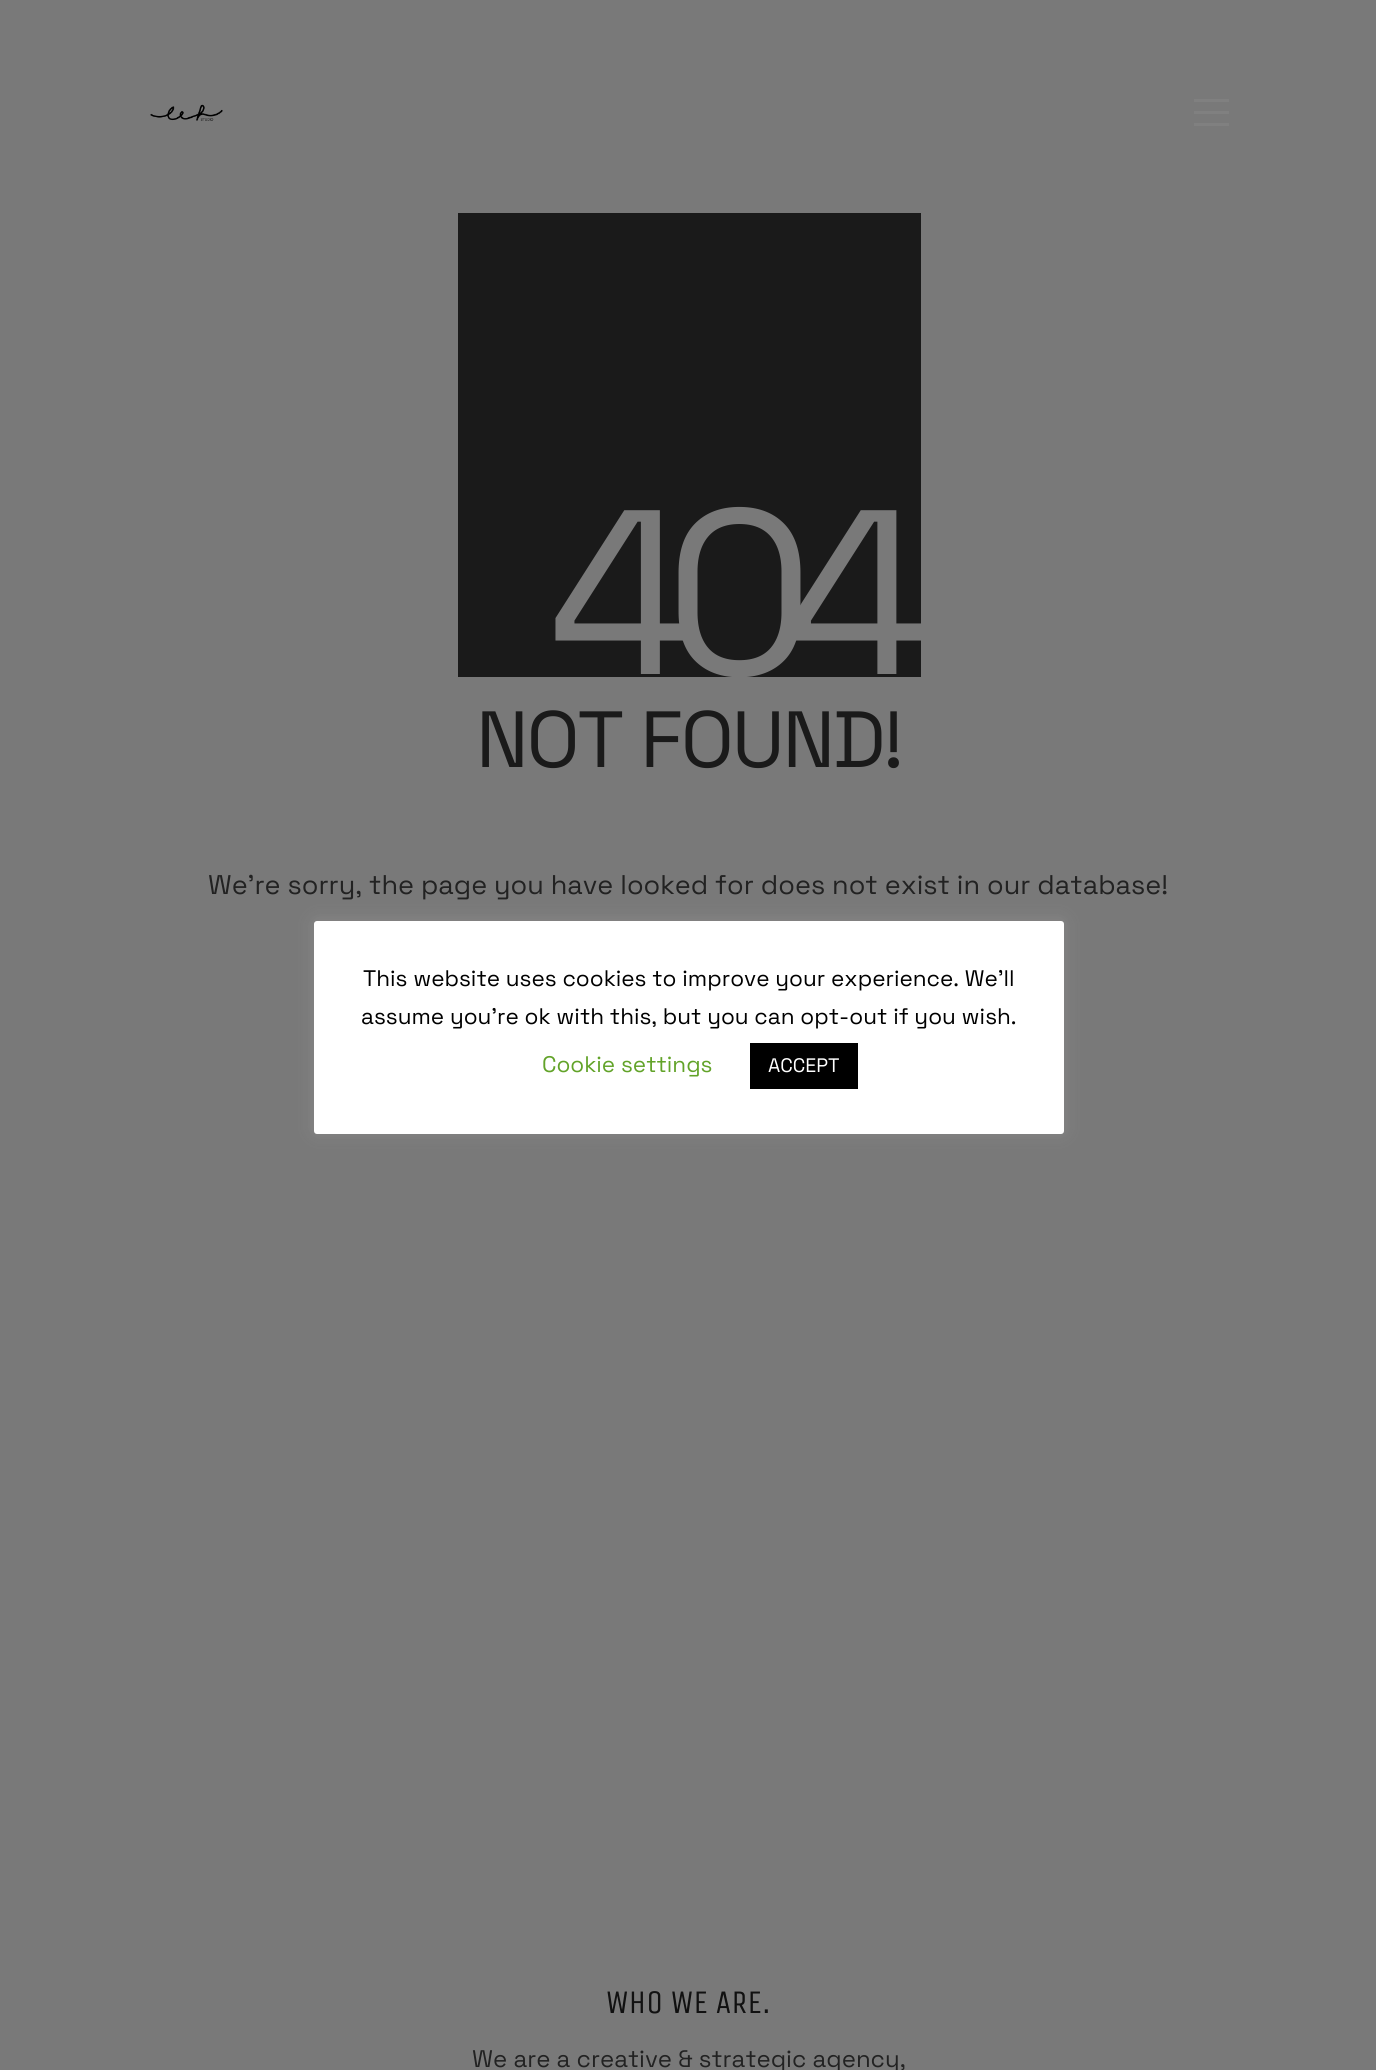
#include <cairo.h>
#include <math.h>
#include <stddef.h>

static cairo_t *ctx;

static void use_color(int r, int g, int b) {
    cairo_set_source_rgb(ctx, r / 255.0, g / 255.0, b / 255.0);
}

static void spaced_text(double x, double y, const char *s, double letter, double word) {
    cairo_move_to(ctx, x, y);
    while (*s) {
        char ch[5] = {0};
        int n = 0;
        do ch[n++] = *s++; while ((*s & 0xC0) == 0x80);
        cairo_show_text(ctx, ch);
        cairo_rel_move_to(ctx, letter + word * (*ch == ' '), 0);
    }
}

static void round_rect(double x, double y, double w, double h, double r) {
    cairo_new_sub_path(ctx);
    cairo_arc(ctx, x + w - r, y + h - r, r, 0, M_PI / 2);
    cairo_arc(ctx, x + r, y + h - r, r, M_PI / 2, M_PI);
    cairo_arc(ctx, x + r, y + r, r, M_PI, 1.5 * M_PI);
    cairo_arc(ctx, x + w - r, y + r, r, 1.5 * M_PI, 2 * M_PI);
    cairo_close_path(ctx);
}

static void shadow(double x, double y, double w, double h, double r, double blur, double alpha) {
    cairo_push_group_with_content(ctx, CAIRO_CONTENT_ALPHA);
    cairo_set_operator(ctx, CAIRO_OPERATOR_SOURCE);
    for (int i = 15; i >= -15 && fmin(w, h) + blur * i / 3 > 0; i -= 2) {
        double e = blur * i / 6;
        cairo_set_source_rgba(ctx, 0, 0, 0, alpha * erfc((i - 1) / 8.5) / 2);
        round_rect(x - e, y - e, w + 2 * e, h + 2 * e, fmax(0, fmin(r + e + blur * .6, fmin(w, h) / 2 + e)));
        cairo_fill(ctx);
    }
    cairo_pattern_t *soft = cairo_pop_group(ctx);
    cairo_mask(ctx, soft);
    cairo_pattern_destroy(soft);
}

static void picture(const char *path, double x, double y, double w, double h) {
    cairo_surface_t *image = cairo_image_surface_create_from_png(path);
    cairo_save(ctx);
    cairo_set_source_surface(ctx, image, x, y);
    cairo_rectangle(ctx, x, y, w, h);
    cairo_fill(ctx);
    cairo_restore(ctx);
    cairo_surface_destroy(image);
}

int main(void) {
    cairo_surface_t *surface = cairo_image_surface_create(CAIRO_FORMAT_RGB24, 1376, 2070);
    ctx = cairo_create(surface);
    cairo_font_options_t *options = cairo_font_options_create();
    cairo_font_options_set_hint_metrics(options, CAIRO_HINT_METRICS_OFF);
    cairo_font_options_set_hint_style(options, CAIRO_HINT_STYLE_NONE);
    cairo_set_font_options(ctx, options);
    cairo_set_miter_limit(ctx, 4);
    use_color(121, 121, 121);
    cairo_paint(ctx);
    picture("img1.png", 150, 104, 73, 17);
    use_color(128, 128, 128);
    cairo_rectangle(ctx, 1194, 99, 35, 3);
    cairo_fill(ctx);
    cairo_rectangle(ctx, 1194, 111, 35, 3);
    cairo_fill(ctx);
    cairo_rectangle(ctx, 1194, 123, 35, 3);
    cairo_fill(ctx);
    use_color(26, 26, 26);
    cairo_rectangle(ctx, 458, 213, 463, 464);
    cairo_fill(ctx);
    cairo_select_font_face(ctx, "Space Grotesk", CAIRO_FONT_SLANT_NORMAL, CAIRO_FONT_WEIGHT_NORMAL);
    cairo_set_font_size(ctx, 234);
    use_color(121, 121, 121);
    spaced_text(548, 674, "4 0 4", -45, 0);
    cairo_set_font_size(ctx, 79.5);
    use_color(26, 26, 26);
    spaced_text(476, 767, "NOT FOUND!", -2.25, 0);
    cairo_set_font_size(ctx, 27);
    use_color(34, 34, 34);
    cairo_move_to(ctx, 208, 894);
    cairo_show_text(ctx, "We’re sorry, the page you have looked for does not exist in our database!");
    use_color(172, 171, 171);
    shadow(314, 920, 750, 213, 3, 7.5, 0.3);
    use_color(255, 255, 255);
    round_rect(314, 921, 750, 213, 3);
    cairo_fill(ctx);
    cairo_set_font_size(ctx, 22.5);
    use_color(0, 0, 0);
    cairo_move_to(ctx, 363, 986);
    cairo_show_text(ctx, "This website uses cookies to improve your experience. We'll");
    cairo_move_to(ctx, 361, 1024);
    cairo_show_text(ctx, "assume you're ok with this, but you can opt-out if you wish.");
    use_color(98, 163, 41);
    cairo_move_to(ctx, 542, 1072);
    cairo_show_text(ctx, "Cookie settings");
    use_color(0, 0, 0);
    cairo_rectangle(ctx, 750, 1043, 108, 46);
    cairo_fill(ctx);
    cairo_set_font_size(ctx, 19.5);
    use_color(255, 255, 255);
    cairo_move_to(ctx, 768, 1072);
    cairo_show_text(ctx, "ACCEPT");
    cairo_select_font_face(ctx, "Unica One", CAIRO_FONT_SLANT_NORMAL, CAIRO_FONT_WEIGHT_NORMAL);
    cairo_set_font_size(ctx, 33);
    use_color(17, 17, 17);
    cairo_move_to(ctx, 606, 2013);
    cairo_show_text(ctx, "WHO WE ARE.");
    cairo_select_font_face(ctx, "Space Grotesk", CAIRO_FONT_SLANT_NORMAL, CAIRO_FONT_WEIGHT_NORMAL);
    cairo_set_font_size(ctx, 24);
    use_color(34, 34, 34);
    cairo_move_to(ctx, 472, 2067);
    cairo_show_text(ctx, "We are a creative & strategic agency,");
    cairo_surface_write_to_png(surface, "result.png");
    cairo_font_options_destroy(options);
    cairo_destroy(ctx);
    cairo_surface_destroy(surface);
    return 0;
}
